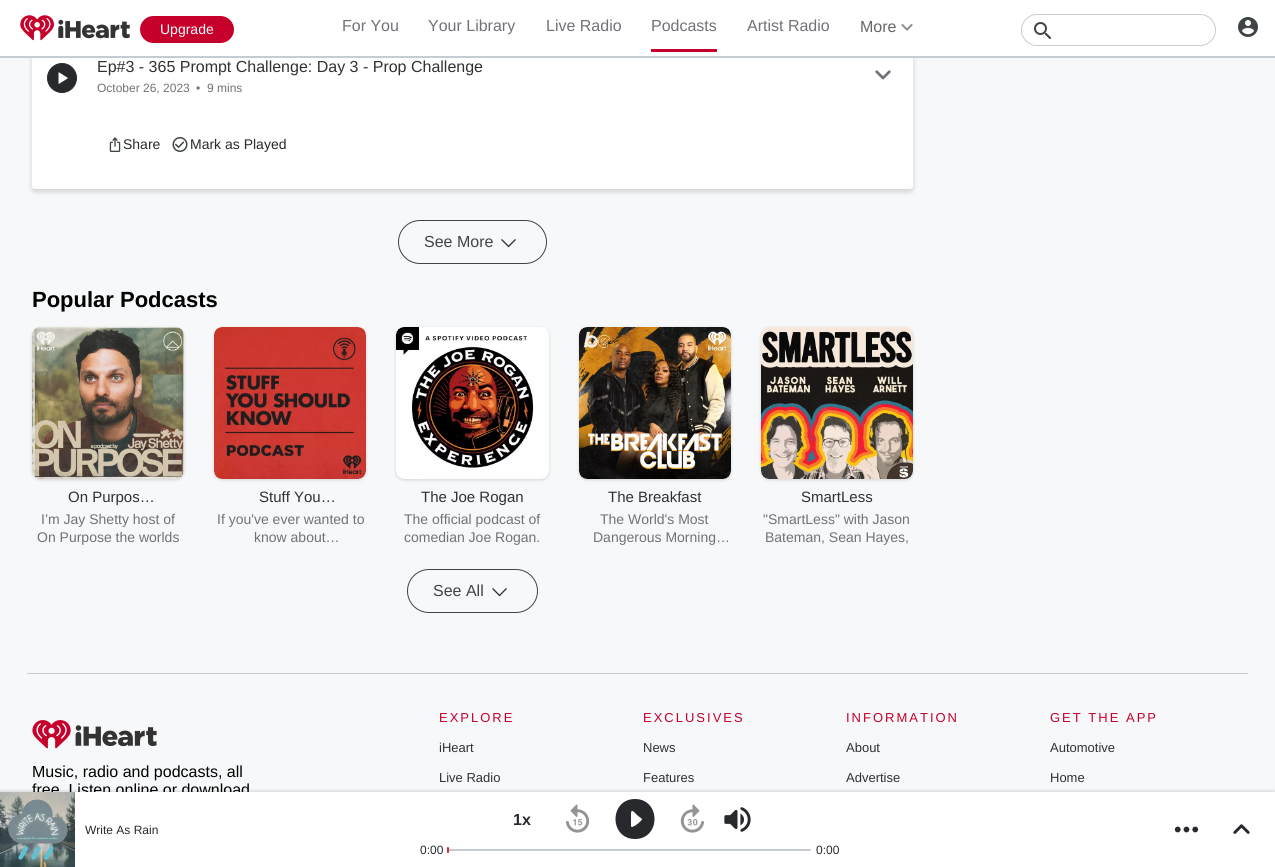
#include <cairo.h>
#include <math.h>
#include <stddef.h>

static cairo_t *ctx;

static void use_color(int r, int g, int b) {
    cairo_set_source_rgb(ctx, r / 255.0, g / 255.0, b / 255.0);
}

static void spaced_text(double x, double y, const char *s, double letter, double word) {
    cairo_move_to(ctx, x, y);
    while (*s) {
        char ch[5] = {0};
        int n = 0;
        do ch[n++] = *s++; while ((*s & 0xC0) == 0x80);
        cairo_show_text(ctx, ch);
        cairo_rel_move_to(ctx, letter + word * (*ch == ' '), 0);
    }
}

static void round_rect(double x, double y, double w, double h, double r) {
    cairo_new_sub_path(ctx);
    cairo_arc(ctx, x + w - r, y + h - r, r, 0, M_PI / 2);
    cairo_arc(ctx, x + r, y + h - r, r, M_PI / 2, M_PI);
    cairo_arc(ctx, x + r, y + r, r, M_PI, 1.5 * M_PI);
    cairo_arc(ctx, x + w - r, y + r, r, 1.5 * M_PI, 2 * M_PI);
    cairo_close_path(ctx);
}

static void shadow(double x, double y, double w, double h, double r, double blur, double alpha) {
    cairo_push_group_with_content(ctx, CAIRO_CONTENT_ALPHA);
    cairo_set_operator(ctx, CAIRO_OPERATOR_SOURCE);
    for (int i = 15; i >= -15 && fmin(w, h) + blur * i / 3 > 0; i -= 2) {
        double e = blur * i / 6;
        cairo_set_source_rgba(ctx, 0, 0, 0, alpha * erfc((i - 1) / 8.5) / 2);
        round_rect(x - e, y - e, w + 2 * e, h + 2 * e, fmax(0, fmin(r + e + blur * .6, fmin(w, h) / 2 + e)));
        cairo_fill(ctx);
    }
    cairo_pattern_t *soft = cairo_pop_group(ctx);
    cairo_mask(ctx, soft);
    cairo_pattern_destroy(soft);
}

static void picture(const char *path, double x, double y, double w, double h) {
    cairo_surface_t *image = cairo_image_surface_create_from_png(path);
    cairo_save(ctx);
    cairo_set_source_surface(ctx, image, x, y);
    cairo_rectangle(ctx, x, y, w, h);
    cairo_fill(ctx);
    cairo_restore(ctx);
    cairo_surface_destroy(image);
}

int main(void) {
    cairo_surface_t *surface = cairo_image_surface_create(CAIRO_FORMAT_RGB24, 1275, 867);
    ctx = cairo_create(surface);
    cairo_font_options_t *options = cairo_font_options_create();
    cairo_font_options_set_hint_metrics(options, CAIRO_HINT_METRICS_OFF);
    cairo_font_options_set_hint_style(options, CAIRO_HINT_STYLE_NONE);
    cairo_set_font_options(ctx, options);
    cairo_set_miter_limit(ctx, 4);
    use_color(246, 248, 249);
    cairo_paint(ctx);
    use_color(0, 0, 0);
    shadow(32, 41, 881, 151, 3, 2.5, 0.15);
    use_color(255, 255, 255);
    round_rect(32, 38, 881, 151, 3);
    cairo_fill(ctx);
    cairo_rectangle(ctx, 0, 0, 1275, 56);
    cairo_fill(ctx);
    use_color(197, 205, 210);
    cairo_rectangle(ctx, 0, 56, 1275, 2);
    cairo_fill(ctx);
    picture("img1.png", 20, 15, 110, 26);
    use_color(198, 0, 43);
    round_rect(140, 16, 94, 27, 13.5);
    cairo_fill(ctx);
    cairo_select_font_face(ctx, "Liberation Sans", CAIRO_FONT_SLANT_NORMAL, CAIRO_FONT_WEIGHT_NORMAL);
    cairo_set_font_size(ctx, 14);
    use_color(255, 255, 255);
    cairo_move_to(ctx, 160, 34);
    cairo_show_text(ctx, "Upgrade");
    cairo_set_font_size(ctx, 16);
    use_color(113, 114, 119);
    cairo_move_to(ctx, 342, 31);
    cairo_show_text(ctx, "For You");
    cairo_move_to(ctx, 428, 31);
    cairo_show_text(ctx, "Your Library");
    cairo_move_to(ctx, 546, 31);
    cairo_show_text(ctx, "Live Radio");
    cairo_move_to(ctx, 651, 31);
    cairo_show_text(ctx, "Podcasts");
    use_color(198, 0, 43);
    cairo_rectangle(ctx, 651, 49, 66, 3);
    cairo_fill(ctx);
    use_color(113, 114, 119);
    cairo_move_to(ctx, 747, 31);
    cairo_show_text(ctx, "Artist Radio");
    use_color(102, 102, 102);
    cairo_move_to(ctx, 860, 32);
    cairo_show_text(ctx, "More");
    picture("img2.png", 901, 24, 12, 7);
    round_rect(1021.5, 14.5, 194, 31, 15.5);
    use_color(197, 205, 210);
    cairo_set_line_width(ctx, 1);
    cairo_stroke(ctx);
    picture("img3.png", 1034, 22, 17, 17);
    picture("img4.png", 1238, 17, 20, 20);
    use_color(39, 41, 45);
    cairo_arc(ctx, 62, 78, 14.5, 0, 2 * M_PI);
    cairo_fill_preserve(ctx);
    cairo_stroke(ctx);
    picture("img5.png", 58, 72, 10, 12);
    use_color(47, 49, 51);
    cairo_move_to(ctx, 97, 72);
    cairo_show_text(ctx, "Ep#3 - 365 Prompt Challenge: Day 3 - Prop Challenge");
    cairo_set_font_size(ctx, 12);
    use_color(113, 114, 119);
    cairo_move_to(ctx, 97, 92);
    cairo_show_text(ctx, "October 26, 2023");
    cairo_move_to(ctx, 196, 92);
    cairo_show_text(ctx, "•");
    cairo_move_to(ctx, 207, 92);
    cairo_show_text(ctx, "9 mins");
    picture("img6.png", 875, 70, 16, 10);
    picture("img7.png", 109, 137, 12, 15);
    cairo_set_font_size(ctx, 14);
    use_color(39, 41, 45);
    cairo_move_to(ctx, 123, 149);
    cairo_show_text(ctx, "Share");
    picture("img8.png", 172, 137, 16, 15);
    cairo_move_to(ctx, 190, 149);
    cairo_show_text(ctx, "Mark as Played");
    round_rect(398.5, 220.5, 148, 43, 21.5);
    use_color(63, 68, 71);
    cairo_stroke(ctx);
    cairo_set_font_size(ctx, 16);
    cairo_move_to(ctx, 424, 247);
    cairo_show_text(ctx, "See More");
    picture("img9.png", 501, 239, 15, 9);
    cairo_select_font_face(ctx, "Liberation Sans", CAIRO_FONT_SLANT_NORMAL, CAIRO_FONT_WEIGHT_BOLD);
    cairo_set_font_size(ctx, 22);
    use_color(0, 0, 0);
    cairo_move_to(ctx, 32, 307);
    cairo_show_text(ctx, "Popular Podcasts");
    use_color(0, 0, 0);
    shadow(32, 328, 152, 152, 8, 1.5, 0.15);
    picture("img10.png", 32, 327, 152, 152);
    cairo_select_font_face(ctx, "Liberation Sans", CAIRO_FONT_SLANT_NORMAL, CAIRO_FONT_WEIGHT_NORMAL);
    cairo_set_font_size(ctx, 15);
    use_color(47, 49, 51);
    cairo_move_to(ctx, 68, 502);
    cairo_show_text(ctx, "On Purpos…");
    cairo_set_font_size(ctx, 14);
    use_color(113, 114, 119);
    cairo_move_to(ctx, 41, 524);
    cairo_show_text(ctx, "I’m Jay Shetty host of");
    cairo_move_to(ctx, 37, 542);
    cairo_show_text(ctx, "On Purpose the worlds");
    use_color(0, 0, 0);
    shadow(214, 328, 152, 152, 8, 1.5, 0.15);
    picture("img11.png", 214, 327, 152, 152);
    cairo_set_font_size(ctx, 15);
    use_color(47, 49, 51);
    cairo_move_to(ctx, 259, 502);
    cairo_show_text(ctx, "Stuff You…");
    cairo_set_font_size(ctx, 14);
    use_color(113, 114, 119);
    cairo_move_to(ctx, 217, 524);
    cairo_show_text(ctx, "If you've ever wanted to");
    cairo_move_to(ctx, 254, 542);
    cairo_show_text(ctx, "know about…");
    use_color(0, 0, 0);
    shadow(396, 328, 153, 152, 8, 1.5, 0.15);
    picture("img12.png", 396, 327, 153, 152);
    cairo_set_font_size(ctx, 15);
    use_color(47, 49, 51);
    cairo_move_to(ctx, 421, 502);
    cairo_show_text(ctx, "The Joe Rogan");
    cairo_set_font_size(ctx, 14);
    use_color(113, 114, 119);
    cairo_move_to(ctx, 404, 524);
    cairo_show_text(ctx, "The official podcast of");
    cairo_move_to(ctx, 404, 542);
    cairo_show_text(ctx, "comedian Joe Rogan.");
    use_color(0, 0, 0);
    shadow(579, 328, 152, 152, 8, 1.5, 0.15);
    picture("img13.png", 579, 327, 152, 152);
    cairo_set_font_size(ctx, 15);
    use_color(47, 49, 51);
    cairo_move_to(ctx, 608, 502);
    cairo_show_text(ctx, "The Breakfast");
    cairo_set_font_size(ctx, 14);
    use_color(113, 114, 119);
    cairo_move_to(ctx, 600, 524);
    cairo_show_text(ctx, "The World's Most");
    cairo_move_to(ctx, 593, 542);
    cairo_show_text(ctx, "Dangerous Morning…");
    use_color(0, 0, 0);
    shadow(761, 328, 152, 152, 8, 1.5, 0.15);
    picture("img14.png", 761, 327, 152, 152);
    cairo_set_font_size(ctx, 15);
    use_color(47, 49, 51);
    cairo_move_to(ctx, 801, 502);
    cairo_show_text(ctx, "SmartLess");
    cairo_set_font_size(ctx, 14);
    use_color(113, 114, 119);
    cairo_move_to(ctx, 763, 524);
    cairo_show_text(ctx, "\"SmartLess\" with Jason");
    cairo_move_to(ctx, 765, 542);
    cairo_show_text(ctx, "Bateman, Sean Hayes,");
    round_rect(407.5, 569.5, 130, 43, 21.5);
    use_color(63, 68, 71);
    cairo_stroke(ctx);
    cairo_set_font_size(ctx, 16);
    cairo_move_to(ctx, 433, 596);
    cairo_show_text(ctx, "See All");
    picture("img9.png", 492, 588, 15, 9);
    use_color(197, 205, 210);
    cairo_rectangle(ctx, 27, 673, 1221, 1);
    cairo_fill(ctx);
    picture("img15.png", 32, 720, 125, 29);
    use_color(0, 0, 0);
    cairo_move_to(ctx, 32, 777);
    cairo_show_text(ctx, "Music, radio and podcasts, all");
    cairo_move_to(ctx, 32, 795);
    cairo_show_text(ctx, "free. Listen online or download");
    cairo_set_font_size(ctx, 13);
    use_color(198, 0, 43);
    spaced_text(439, 722, "EXPLORE", 2, 0);
    use_color(47, 49, 51);
    cairo_move_to(ctx, 439, 752);
    cairo_show_text(ctx, "iHeart");
    cairo_move_to(ctx, 439, 782);
    cairo_show_text(ctx, "Live Radio");
    use_color(198, 0, 43);
    spaced_text(643, 722, "EXCLUSIVES", 2, 0);
    use_color(47, 49, 51);
    cairo_move_to(ctx, 643, 752);
    cairo_show_text(ctx, "News");
    cairo_move_to(ctx, 643, 782);
    cairo_show_text(ctx, "Features");
    use_color(198, 0, 43);
    spaced_text(846, 722, "INFORMATION", 2, 0);
    use_color(47, 49, 51);
    cairo_move_to(ctx, 846, 752);
    cairo_show_text(ctx, "About");
    cairo_move_to(ctx, 846, 782);
    cairo_show_text(ctx, "Advertise");
    use_color(198, 0, 43);
    spaced_text(1050, 722, "GET THE APP", 2, 0);
    use_color(47, 49, 51);
    cairo_move_to(ctx, 1050, 752);
    cairo_show_text(ctx, "Automotive");
    cairo_move_to(ctx, 1050, 782);
    cairo_show_text(ctx, "Home");
    use_color(0, 0, 0);
    shadow(0, 791, 1275, 75, 0, 1.5, 0.15);
    use_color(255, 255, 255);
    cairo_rectangle(ctx, 75, 792, 1200, 75);
    cairo_fill(ctx);
    picture("img16.png", 0, 792, 75, 75);
    cairo_set_font_size(ctx, 12);
    use_color(39, 41, 45);
    cairo_move_to(ctx, 85, 834);
    cairo_show_text(ctx, "Write As Rain");
    cairo_select_font_face(ctx, "Liberation Sans", CAIRO_FONT_SLANT_NORMAL, CAIRO_FONT_WEIGHT_BOLD);
    cairo_set_font_size(ctx, 16);
    cairo_move_to(ctx, 513, 825);
    cairo_show_text(ctx, "1x");
    picture("img17.png", 566, 804, 24, 29);
    cairo_new_path(ctx);
    cairo_move_to(ctx, 635, 799);
    cairo_curve_to(ctx, 609, 799, 609, 839, 635, 839);
    cairo_curve_to(ctx, 661, 839, 661, 799, 635, 799);
    cairo_close_path(ctx);
    cairo_move_to(ctx, 631, 826);
    cairo_line_to(ctx, 631, 814);
    cairo_curve_to(ctx, 631, 808, 634, 812, 637, 815);
    cairo_line_to(ctx, 642, 819);
    cairo_curve_to(ctx, 643, 820, 631, 830, 631, 826);
    cairo_close_path(ctx);
    cairo_fill(ctx);
    picture("img18.png", 680, 804, 24, 29);
    picture("img19.png", 724, 807, 27, 25);
    cairo_select_font_face(ctx, "Liberation Sans", CAIRO_FONT_SLANT_NORMAL, CAIRO_FONT_WEIGHT_NORMAL);
    cairo_set_font_size(ctx, 12);
    cairo_move_to(ctx, 420, 854);
    cairo_show_text(ctx, "0:00");
    use_color(197, 205, 210);
    round_rect(448, 849, 363, 2, 1);
    cairo_fill(ctx);
    use_color(213, 45, 55);
    round_rect(447, 847, 2, 6, 1);
    cairo_fill(ctx);
    use_color(39, 41, 45);
    cairo_move_to(ctx, 816, 854);
    cairo_show_text(ctx, "0:00");
    picture("img20.png", 1174, 826, 25, 7);
    picture("img21.png", 1233, 824, 17, 10);
    cairo_surface_write_to_png(surface, "result.png");
    cairo_font_options_destroy(options);
    cairo_destroy(ctx);
    cairo_surface_destroy(surface);
    return 0;
}
